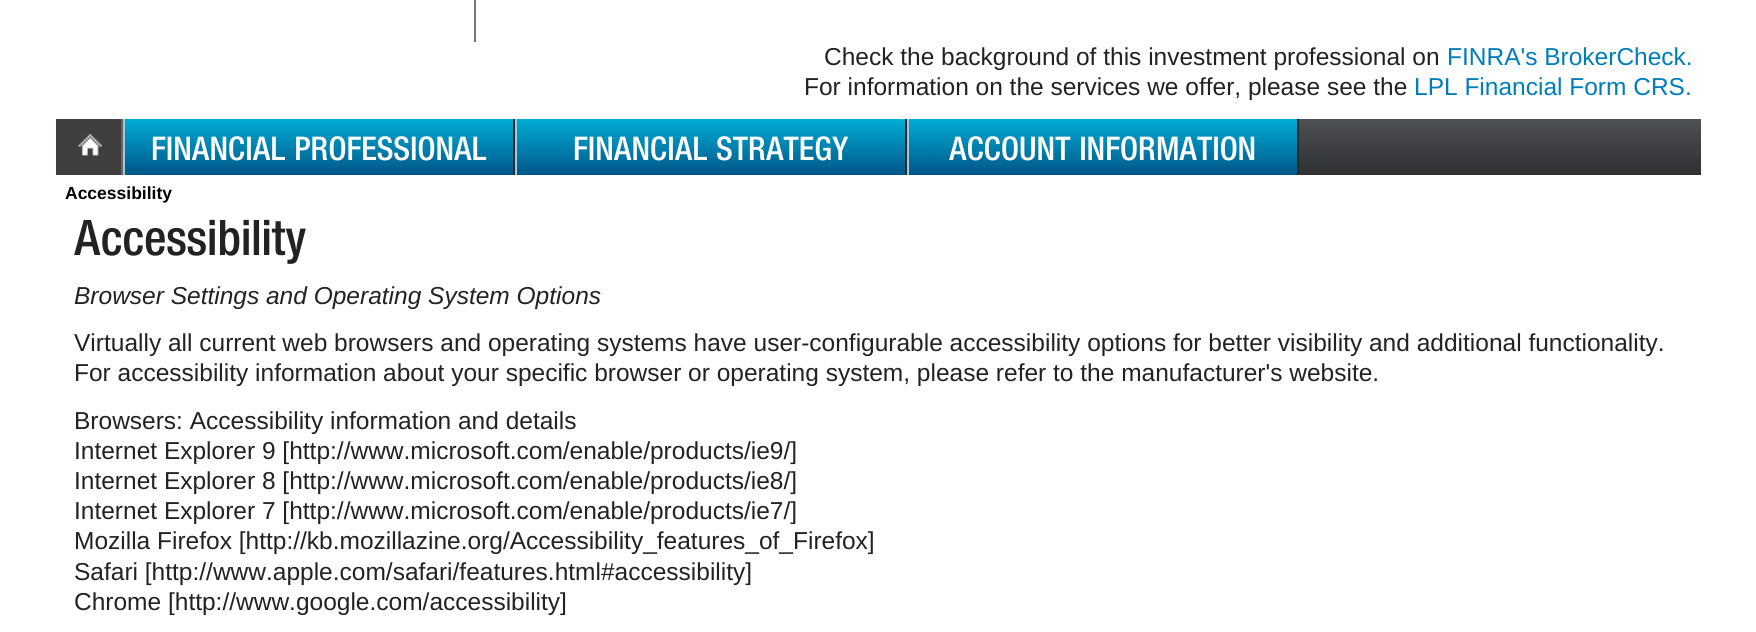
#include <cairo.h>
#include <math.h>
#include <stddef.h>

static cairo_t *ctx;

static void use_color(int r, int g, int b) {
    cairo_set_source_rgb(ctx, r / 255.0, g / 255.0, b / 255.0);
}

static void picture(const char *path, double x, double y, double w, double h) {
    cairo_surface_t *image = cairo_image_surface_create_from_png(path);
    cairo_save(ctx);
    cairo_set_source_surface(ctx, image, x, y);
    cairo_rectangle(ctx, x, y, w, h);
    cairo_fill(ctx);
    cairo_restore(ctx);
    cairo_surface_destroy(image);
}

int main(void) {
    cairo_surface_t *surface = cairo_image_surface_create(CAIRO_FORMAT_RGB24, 1756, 632);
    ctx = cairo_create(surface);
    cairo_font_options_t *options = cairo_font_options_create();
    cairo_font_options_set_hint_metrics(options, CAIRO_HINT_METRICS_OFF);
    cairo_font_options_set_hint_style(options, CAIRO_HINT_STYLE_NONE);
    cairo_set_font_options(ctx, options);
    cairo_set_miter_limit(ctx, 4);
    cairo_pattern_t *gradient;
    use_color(255, 255, 255);
    cairo_paint(ctx);
    use_color(119, 119, 119);
    cairo_rectangle(ctx, 474, 0, 2, 42);
    cairo_fill(ctx);
    cairo_select_font_face(ctx, "Liberation Sans", CAIRO_FONT_SLANT_NORMAL, CAIRO_FONT_WEIGHT_NORMAL);
    cairo_set_font_size(ctx, 24.5);
    use_color(34, 34, 34);
    cairo_move_to(ctx, 824, 65);
    cairo_show_text(ctx, "Check the background of this investment professional on");
    use_color(0, 125, 187);
    cairo_move_to(ctx, 1447, 65);
    cairo_show_text(ctx, "FINRA's BrokerCheck.");
    use_color(34, 34, 34);
    cairo_move_to(ctx, 804, 95);
    cairo_show_text(ctx, "For information on the services we offer, please see the");
    use_color(0, 125, 187);
    cairo_move_to(ctx, 1414, 95);
    cairo_show_text(ctx, "LPL Financial Form CRS.");
    gradient = cairo_pattern_create_linear(56, 175, 56, 119);
    cairo_pattern_add_color_stop_rgba(gradient, 0, 0, 0.337, 0.537, 1);
    cairo_pattern_add_color_stop_rgba(gradient, 1, 0, 0.678, 0.835, 1);
    cairo_set_source(ctx, gradient);
    cairo_pattern_destroy(gradient);
    cairo_rectangle(ctx, 125, 119, 1172, 56);
    cairo_fill(ctx);
    use_color(64, 62, 62);
    cairo_rectangle(ctx, 56, 119, 65, 56);
    cairo_fill(ctx);
    picture("img1.png", 78, 133, 24, 23);
    use_color(102, 102, 102);
    cairo_rectangle(ctx, 121, 119, 2, 56);
    cairo_fill(ctx);
    use_color(33, 41, 45);
    cairo_rectangle(ctx, 513, 119, 2, 56);
    cairo_fill(ctx);
    use_color(161, 200, 220);
    cairo_rectangle(ctx, 123, 119, 2, 56);
    cairo_fill(ctx);
    cairo_select_font_face(ctx, "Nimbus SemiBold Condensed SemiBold", CAIRO_FONT_SLANT_NORMAL, CAIRO_FONT_WEIGHT_NORMAL);
    cairo_set_font_size(ctx, 35);
    use_color(255, 255, 255);
    cairo_move_to(ctx, 151, 160);
    cairo_show_text(ctx, "FINANCIAL PROFESSIONAL");
    use_color(33, 41, 45);
    cairo_rectangle(ctx, 905, 119, 2, 56);
    cairo_fill(ctx);
    use_color(161, 200, 220);
    cairo_rectangle(ctx, 515, 119, 2, 56);
    cairo_fill(ctx);
    use_color(255, 255, 255);
    cairo_move_to(ctx, 573, 160);
    cairo_show_text(ctx, "FINANCIAL STRATEGY");
    use_color(33, 41, 45);
    cairo_rectangle(ctx, 1297, 119, 2, 56);
    cairo_fill(ctx);
    use_color(161, 200, 220);
    cairo_rectangle(ctx, 907, 119, 2, 56);
    cairo_fill(ctx);
    use_color(255, 255, 255);
    cairo_move_to(ctx, 949, 160);
    cairo_show_text(ctx, "ACCOUNT INFORMATION");
    gradient = cairo_pattern_create_linear(1299, 119, 1299, 175);
    cairo_pattern_add_color_stop_rgba(gradient, 0, 0.302, 0.314, 0.329, 1);
    cairo_pattern_add_color_stop_rgba(gradient, 1, 0.18, 0.188, 0.196, 1);
    cairo_set_source(ctx, gradient);
    cairo_pattern_destroy(gradient);
    cairo_rectangle(ctx, 1299, 119, 402, 56);
    cairo_fill(ctx);
    cairo_select_font_face(ctx, "Liberation Sans", CAIRO_FONT_SLANT_NORMAL, CAIRO_FONT_WEIGHT_BOLD);
    cairo_set_font_size(ctx, 17.5);
    use_color(0, 0, 0);
    cairo_move_to(ctx, 65, 199);
    cairo_show_text(ctx, "Accessibility");
    cairo_select_font_face(ctx, "Nimbus SemiBold Condensed SemiBold", CAIRO_FONT_SLANT_NORMAL, CAIRO_FONT_WEIGHT_NORMAL);
    cairo_set_font_size(ctx, 52.5);
    use_color(34, 34, 34);
    cairo_move_to(ctx, 74, 255);
    cairo_show_text(ctx, "Accessibility");
    cairo_select_font_face(ctx, "Liberation Sans", CAIRO_FONT_SLANT_ITALIC, CAIRO_FONT_WEIGHT_NORMAL);
    cairo_set_font_size(ctx, 24.5);
    cairo_move_to(ctx, 74, 304);
    cairo_show_text(ctx, "Browser Settings and Operating System Options");
    cairo_select_font_face(ctx, "Liberation Sans", CAIRO_FONT_SLANT_NORMAL, CAIRO_FONT_WEIGHT_NORMAL);
    cairo_move_to(ctx, 74, 351);
    cairo_show_text(ctx, "Virtually all current web browsers and operating systems have user-configurable accessibility options for better visibility and additional functionality.");
    cairo_move_to(ctx, 74, 381);
    cairo_show_text(ctx, "For accessibility information about your specific browser or operating system, please refer to the manufacturer's website.");
    cairo_move_to(ctx, 74, 429);
    cairo_show_text(ctx, "Browsers: Accessibility information and details");
    cairo_move_to(ctx, 74, 459);
    cairo_show_text(ctx, "Internet Explorer 9 [http://www.microsoft.com/enable/products/ie9/]");
    cairo_move_to(ctx, 74, 489);
    cairo_show_text(ctx, "Internet Explorer 8 [http://www.microsoft.com/enable/products/ie8/]");
    cairo_move_to(ctx, 74, 519);
    cairo_show_text(ctx, "Internet Explorer 7 [http://www.microsoft.com/enable/products/ie7/]");
    cairo_move_to(ctx, 74, 549);
    cairo_show_text(ctx, "Mozilla Firefox [http://kb.mozillazine.org/Accessibility_features_of_Firefox]");
    cairo_move_to(ctx, 74, 580);
    cairo_show_text(ctx, "Safari [http://www.apple.com/safari/features.html#accessibility]");
    cairo_move_to(ctx, 74, 610);
    cairo_show_text(ctx, "Chrome [http://www.google.com/accessibility]");
    cairo_surface_write_to_png(surface, "result.png");
    cairo_font_options_destroy(options);
    cairo_destroy(ctx);
    cairo_surface_destroy(surface);
    return 0;
}
